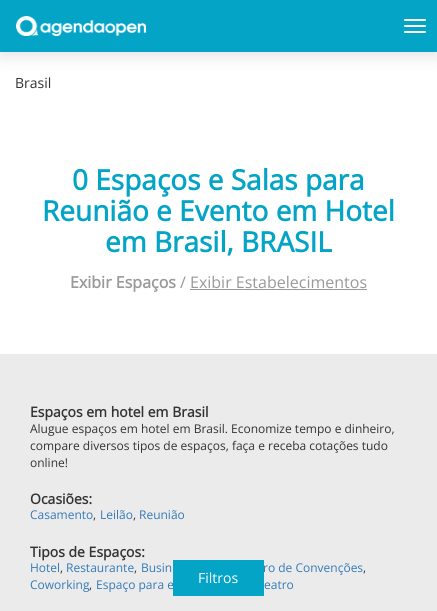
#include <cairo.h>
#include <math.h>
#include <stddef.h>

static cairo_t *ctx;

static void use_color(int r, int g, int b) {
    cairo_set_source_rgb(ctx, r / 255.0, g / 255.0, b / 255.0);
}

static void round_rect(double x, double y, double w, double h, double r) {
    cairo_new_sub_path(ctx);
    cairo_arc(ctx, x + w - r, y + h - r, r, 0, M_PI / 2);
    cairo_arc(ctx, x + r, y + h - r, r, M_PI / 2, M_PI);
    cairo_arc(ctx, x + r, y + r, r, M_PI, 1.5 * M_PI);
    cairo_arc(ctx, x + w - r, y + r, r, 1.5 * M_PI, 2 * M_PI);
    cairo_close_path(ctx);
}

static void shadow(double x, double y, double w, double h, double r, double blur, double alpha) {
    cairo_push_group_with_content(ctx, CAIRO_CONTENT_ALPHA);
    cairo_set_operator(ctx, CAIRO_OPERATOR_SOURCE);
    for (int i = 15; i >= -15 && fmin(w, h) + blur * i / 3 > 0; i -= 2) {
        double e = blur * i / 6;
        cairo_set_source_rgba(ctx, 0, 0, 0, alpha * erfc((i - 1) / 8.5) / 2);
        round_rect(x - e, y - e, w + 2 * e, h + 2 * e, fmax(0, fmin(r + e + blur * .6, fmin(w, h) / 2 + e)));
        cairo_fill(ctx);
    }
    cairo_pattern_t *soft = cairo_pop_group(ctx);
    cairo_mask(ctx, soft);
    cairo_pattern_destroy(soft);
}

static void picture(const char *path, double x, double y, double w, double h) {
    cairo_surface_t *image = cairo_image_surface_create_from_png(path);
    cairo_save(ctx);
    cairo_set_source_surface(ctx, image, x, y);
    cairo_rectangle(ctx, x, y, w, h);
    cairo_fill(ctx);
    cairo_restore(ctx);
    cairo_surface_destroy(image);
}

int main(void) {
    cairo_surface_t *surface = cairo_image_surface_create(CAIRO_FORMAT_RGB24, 437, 611);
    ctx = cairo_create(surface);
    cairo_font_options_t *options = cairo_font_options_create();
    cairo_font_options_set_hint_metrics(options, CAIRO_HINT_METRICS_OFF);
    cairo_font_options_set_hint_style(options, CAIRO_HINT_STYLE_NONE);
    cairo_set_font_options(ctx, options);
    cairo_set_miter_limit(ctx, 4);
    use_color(255, 255, 255);
    cairo_paint(ctx);
    use_color(0, 0, 0);
    shadow(0, 5, 437, 52, 0, 7.5, 0.1);
    use_color(4, 164, 198);
    cairo_rectangle(ctx, 0, 0, 437, 52);
    cairo_fill(ctx);
    picture("img1.png", 16, 16, 130, 20);
    use_color(255, 255, 255);
    round_rect(404, 19, 22, 2, 1);
    cairo_fill(ctx);
    round_rect(404, 25, 22, 2, 1);
    cairo_fill(ctx);
    round_rect(404, 31, 22, 2, 1);
    cairo_fill(ctx);
    cairo_select_font_face(ctx, "Open Sans", CAIRO_FONT_SLANT_NORMAL, CAIRO_FONT_WEIGHT_NORMAL);
    cairo_set_font_size(ctx, 14);
    use_color(51, 51, 51);
    cairo_move_to(ctx, 15, 88);
    cairo_show_text(ctx, "Brasil");
    cairo_select_font_face(ctx, "Open Sans", CAIRO_FONT_SLANT_NORMAL, CAIRO_FONT_WEIGHT_BOLD);
    cairo_set_font_size(ctx, 28);
    use_color(4, 164, 198);
    cairo_move_to(ctx, 72, 190);
    cairo_show_text(ctx, "0 Espaços e Salas para");
    cairo_move_to(ctx, 42, 221);
    cairo_show_text(ctx, "Reunião e Evento em Hotel");
    cairo_move_to(ctx, 105, 252);
    cairo_show_text(ctx, "em Brasil, BRASIL");
    cairo_set_font_size(ctx, 16);
    use_color(153, 153, 153);
    cairo_move_to(ctx, 70, 288);
    cairo_show_text(ctx, "Exibir Espaços");
    cairo_select_font_face(ctx, "Open Sans", CAIRO_FONT_SLANT_NORMAL, CAIRO_FONT_WEIGHT_NORMAL);
    cairo_move_to(ctx, 180, 288);
    cairo_show_text(ctx, "/ Exibir Estabelecimentos");
    cairo_rectangle(ctx, 190, 289, 177, 1);
    cairo_fill(ctx);
    use_color(235, 235, 235);
    cairo_rectangle(ctx, 0, 354, 437, 257);
    cairo_fill(ctx);
    cairo_select_font_face(ctx, "Open Sans", CAIRO_FONT_SLANT_NORMAL, CAIRO_FONT_WEIGHT_BOLD);
    cairo_set_font_size(ctx, 14);
    use_color(51, 51, 51);
    cairo_move_to(ctx, 30, 417);
    cairo_show_text(ctx, "Espaços em hotel em Brasil");
    cairo_select_font_face(ctx, "Open Sans", CAIRO_FONT_SLANT_NORMAL, CAIRO_FONT_WEIGHT_NORMAL);
    cairo_set_font_size(ctx, 12);
    cairo_move_to(ctx, 30, 433);
    cairo_show_text(ctx, "Alugue espaços em hotel em Brasil. Economize tempo e dinheiro,");
    cairo_move_to(ctx, 30, 450);
    cairo_show_text(ctx, "compare diversos tipos de espaços, faça e receba cotações tudo");
    cairo_move_to(ctx, 30, 467);
    cairo_show_text(ctx, "online!");
    cairo_select_font_face(ctx, "Open Sans", CAIRO_FONT_SLANT_NORMAL, CAIRO_FONT_WEIGHT_BOLD);
    cairo_set_font_size(ctx, 14);
    cairo_move_to(ctx, 30, 504);
    cairo_show_text(ctx, "Ocasiões:");
    cairo_select_font_face(ctx, "Open Sans", CAIRO_FONT_SLANT_NORMAL, CAIRO_FONT_WEIGHT_NORMAL);
    cairo_set_font_size(ctx, 12);
    use_color(51, 122, 183);
    cairo_move_to(ctx, 30, 519);
    cairo_show_text(ctx, "Casamento");
    use_color(51, 51, 51);
    cairo_move_to(ctx, 93, 519);
    cairo_show_text(ctx, ",");
    use_color(51, 122, 183);
    cairo_move_to(ctx, 100, 519);
    cairo_show_text(ctx, "Leilão");
    use_color(51, 51, 51);
    cairo_move_to(ctx, 133, 519);
    cairo_show_text(ctx, ",");
    use_color(51, 122, 183);
    cairo_move_to(ctx, 139, 519);
    cairo_show_text(ctx, "Reunião");
    cairo_select_font_face(ctx, "Open Sans", CAIRO_FONT_SLANT_NORMAL, CAIRO_FONT_WEIGHT_BOLD);
    cairo_set_font_size(ctx, 14);
    use_color(51, 51, 51);
    cairo_move_to(ctx, 30, 557);
    cairo_show_text(ctx, "Tipos de Espaços:");
    cairo_select_font_face(ctx, "Open Sans", CAIRO_FONT_SLANT_NORMAL, CAIRO_FONT_WEIGHT_NORMAL);
    cairo_set_font_size(ctx, 12);
    use_color(51, 122, 183);
    cairo_move_to(ctx, 30, 572);
    cairo_show_text(ctx, "Hotel");
    use_color(51, 51, 51);
    cairo_move_to(ctx, 60, 572);
    cairo_show_text(ctx, ",");
    use_color(51, 122, 183);
    cairo_move_to(ctx, 66, 572);
    cairo_show_text(ctx, "Restaurante");
    use_color(51, 51, 51);
    cairo_move_to(ctx, 134, 572);
    cairo_show_text(ctx, ",");
    use_color(51, 122, 183);
    cairo_move_to(ctx, 141, 572);
    cairo_show_text(ctx, "Busin");
    cairo_move_to(ctx, 263, 572);
    cairo_show_text(ctx, "ro de Convenções");
    use_color(51, 51, 51);
    cairo_move_to(ctx, 363, 572);
    cairo_show_text(ctx, ",");
    use_color(51, 122, 183);
    cairo_move_to(ctx, 30, 589);
    cairo_show_text(ctx, "Coworking");
    use_color(51, 51, 51);
    cairo_move_to(ctx, 89, 589);
    cairo_show_text(ctx, ",");
    use_color(51, 122, 183);
    cairo_move_to(ctx, 96, 589);
    cairo_show_text(ctx, "Espaço para e");
    cairo_move_to(ctx, 264, 589);
    cairo_show_text(ctx, "eatro");
    use_color(4, 164, 198);
    cairo_rectangle(ctx, 173, 560, 91, 36);
    cairo_fill(ctx);
    cairo_set_font_size(ctx, 14);
    use_color(255, 255, 255);
    cairo_move_to(ctx, 198, 583);
    cairo_show_text(ctx, "Filtros");
    cairo_surface_write_to_png(surface, "result.png");
    cairo_font_options_destroy(options);
    cairo_destroy(ctx);
    cairo_surface_destroy(surface);
    return 0;
}
